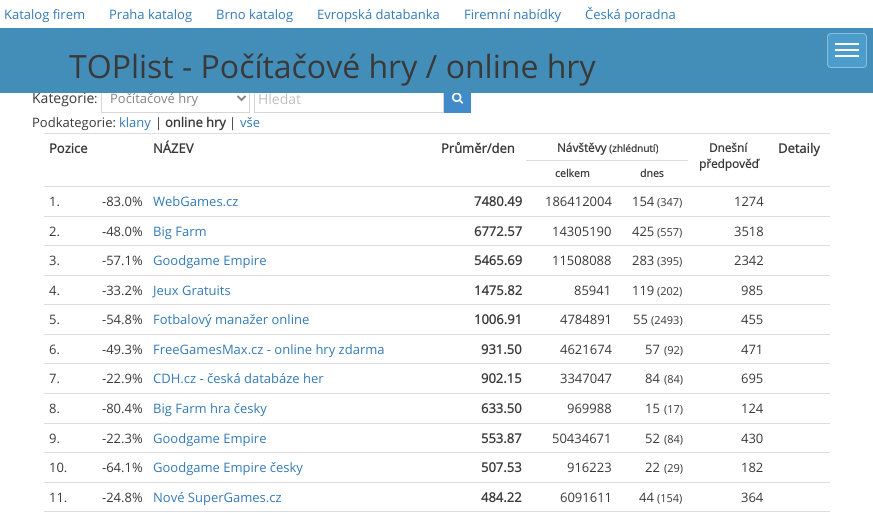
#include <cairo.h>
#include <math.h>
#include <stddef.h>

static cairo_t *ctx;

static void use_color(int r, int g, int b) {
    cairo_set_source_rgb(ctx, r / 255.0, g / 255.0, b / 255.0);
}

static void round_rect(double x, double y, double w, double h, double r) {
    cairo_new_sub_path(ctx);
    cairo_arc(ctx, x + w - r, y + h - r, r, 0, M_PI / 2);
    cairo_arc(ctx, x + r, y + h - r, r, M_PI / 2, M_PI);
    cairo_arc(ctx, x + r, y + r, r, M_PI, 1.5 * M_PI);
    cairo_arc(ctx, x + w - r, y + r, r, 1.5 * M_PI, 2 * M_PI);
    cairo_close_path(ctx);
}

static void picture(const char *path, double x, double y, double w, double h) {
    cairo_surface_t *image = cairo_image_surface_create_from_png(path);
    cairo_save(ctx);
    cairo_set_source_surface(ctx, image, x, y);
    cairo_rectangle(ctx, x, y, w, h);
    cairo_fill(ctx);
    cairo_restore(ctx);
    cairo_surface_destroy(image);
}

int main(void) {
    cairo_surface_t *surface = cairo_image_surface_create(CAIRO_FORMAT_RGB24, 873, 513);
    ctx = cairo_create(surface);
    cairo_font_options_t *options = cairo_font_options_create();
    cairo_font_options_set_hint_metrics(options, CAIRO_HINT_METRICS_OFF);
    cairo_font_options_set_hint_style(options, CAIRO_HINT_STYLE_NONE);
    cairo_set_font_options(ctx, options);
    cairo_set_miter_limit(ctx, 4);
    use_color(255, 255, 255);
    cairo_paint(ctx);
    cairo_select_font_face(ctx, "Open Sans", CAIRO_FONT_SLANT_NORMAL, CAIRO_FONT_WEIGHT_NORMAL);
    cairo_set_font_size(ctx, 13);
    use_color(51, 122, 183);
    cairo_move_to(ctx, 4, 19);
    cairo_show_text(ctx, "Katalog firem");
    cairo_move_to(ctx, 109, 19);
    cairo_show_text(ctx, "Praha katalog");
    cairo_move_to(ctx, 216, 19);
    cairo_show_text(ctx, "Brno katalog");
    cairo_move_to(ctx, 317, 19);
    cairo_show_text(ctx, "Evropská databanka");
    cairo_move_to(ctx, 464, 19);
    cairo_show_text(ctx, "Firemní nabídky");
    cairo_move_to(ctx, 585, 19);
    cairo_show_text(ctx, "Česká poradna");
    cairo_set_font_size(ctx, 14);
    use_color(57, 57, 57);
    cairo_move_to(ctx, 32, 103);
    cairo_show_text(ctx, "Kategorie");
    cairo_rectangle(ctx, 101.5, 83.5, 148, 29);
    use_color(213, 213, 213);
    cairo_set_line_width(ctx, 1);
    cairo_stroke(ctx);
    cairo_rectangle(ctx, 254.5, 83.5, 189, 29);
    cairo_stroke(ctx);
    use_color(67, 142, 185);
    cairo_rectangle(ctx, 0, 28, 873, 65);
    cairo_fill(ctx);
    cairo_set_font_size(ctx, 32);
    use_color(57, 57, 57);
    cairo_move_to(ctx, 69, 78);
    cairo_show_text(ctx, "TOPlist - Počítačové hry / online hry");
    use_color(77, 157, 204);
    round_rect(827, 33, 40, 35, 4);
    cairo_fill(ctx);
    round_rect(827.5, 33.5, 39, 34, 3.5);
    cairo_set_source_rgba(ctx, 1, 1, 1, 0.35);
    cairo_stroke(ctx);
    use_color(255, 255, 255);
    cairo_rectangle(ctx, 835, 43, 24, 2);
    cairo_fill(ctx);
    cairo_rectangle(ctx, 835, 49, 24, 2);
    cairo_fill(ctx);
    cairo_rectangle(ctx, 835, 55, 24, 2);
    cairo_fill(ctx);
    cairo_set_font_size(ctx, 13);
    use_color(57, 57, 57);
    cairo_move_to(ctx, 94, 103);
    cairo_show_text(ctx, ":");
    cairo_new_path(ctx);
    cairo_move_to(ctx, 237.5, 96);
    cairo_line_to(ctx, 241.5, 100);
    cairo_line_to(ctx, 245.5, 96);
    use_color(133, 133, 133);
    cairo_set_line_width(ctx, 2);
    cairo_stroke(ctx);
    cairo_move_to(ctx, 110, 103);
    cairo_show_text(ctx, "Počítačové hry");
    cairo_set_font_size(ctx, 14);
    use_color(192, 192, 192);
    cairo_move_to(ctx, 258, 104);
    cairo_show_text(ctx, "Hledat");
    use_color(66, 139, 202);
    cairo_rectangle(ctx, 444, 93, 27, 20);
    cairo_fill(ctx);
    picture("img1.png", 452, 93, 12, 11);
    cairo_set_font_size(ctx, 13);
    use_color(57, 57, 57);
    cairo_move_to(ctx, 32, 127);
    cairo_show_text(ctx, "Podkategorie:");
    use_color(51, 122, 183);
    cairo_move_to(ctx, 119, 127);
    cairo_show_text(ctx, "klany");
    use_color(57, 57, 57);
    cairo_move_to(ctx, 155, 127);
    cairo_show_text(ctx, "|");
    cairo_select_font_face(ctx, "Open Sans", CAIRO_FONT_SLANT_NORMAL, CAIRO_FONT_WEIGHT_BOLD);
    cairo_move_to(ctx, 165, 127);
    cairo_show_text(ctx, "online hry");
    cairo_select_font_face(ctx, "Open Sans", CAIRO_FONT_SLANT_NORMAL, CAIRO_FONT_WEIGHT_NORMAL);
    cairo_move_to(ctx, 229, 127);
    cairo_show_text(ctx, "|");
    use_color(51, 122, 183);
    cairo_move_to(ctx, 240, 127);
    cairo_show_text(ctx, "vše");
    cairo_select_font_face(ctx, "Open Sans", CAIRO_FONT_SLANT_NORMAL, CAIRO_FONT_WEIGHT_BOLD);
    use_color(57, 57, 57);
    cairo_move_to(ctx, 49, 153);
    cairo_show_text(ctx, "Pozice");
    cairo_move_to(ctx, 153, 153);
    cairo_show_text(ctx, "NÁZEV");
    cairo_move_to(ctx, 441, 153);
    cairo_show_text(ctx, "Průměr/den");
    cairo_set_font_size(ctx, 11.75);
    cairo_move_to(ctx, 557, 152);
    cairo_show_text(ctx, "Návštěvy");
    cairo_set_font_size(ctx, 10);
    cairo_move_to(ctx, 609, 152);
    cairo_show_text(ctx, "(zhlédnutí)");
    cairo_set_font_size(ctx, 11.75);
    cairo_move_to(ctx, 709, 152);
    cairo_show_text(ctx, "Dnešní");
    cairo_move_to(ctx, 699, 168);
    cairo_show_text(ctx, "předpověď");
    use_color(221, 221, 221);
    cairo_rectangle(ctx, 44, 133, 786, 1);
    cairo_fill(ctx);
    cairo_set_font_size(ctx, 13);
    use_color(57, 57, 57);
    cairo_move_to(ctx, 778, 153);
    cairo_show_text(ctx, "Detaily");
    cairo_set_font_size(ctx, 10.5);
    cairo_move_to(ctx, 555, 177);
    cairo_show_text(ctx, "celkem");
    use_color(221, 221, 221);
    cairo_rectangle(ctx, 526, 160, 162, 1);
    cairo_fill(ctx);
    use_color(57, 57, 57);
    cairo_move_to(ctx, 640, 177);
    cairo_show_text(ctx, "dnes");
    use_color(221, 221, 221);
    cairo_rectangle(ctx, 44, 186, 786, 1);
    cairo_fill(ctx);
    cairo_select_font_face(ctx, "Open Sans", CAIRO_FONT_SLANT_NORMAL, CAIRO_FONT_WEIGHT_NORMAL);
    cairo_set_font_size(ctx, 13);
    use_color(57, 57, 57);
    cairo_move_to(ctx, 49, 206);
    cairo_show_text(ctx, "1.");
    cairo_move_to(ctx, 102, 206);
    cairo_show_text(ctx, "-83.0%");
    use_color(51, 122, 183);
    cairo_move_to(ctx, 153, 206);
    cairo_show_text(ctx, "WebGames.cz");
    cairo_select_font_face(ctx, "Open Sans", CAIRO_FONT_SLANT_NORMAL, CAIRO_FONT_WEIGHT_BOLD);
    use_color(57, 57, 57);
    cairo_move_to(ctx, 474, 206);
    cairo_show_text(ctx, "7480.49");
    cairo_select_font_face(ctx, "Open Sans", CAIRO_FONT_SLANT_NORMAL, CAIRO_FONT_WEIGHT_NORMAL);
    cairo_move_to(ctx, 545, 206);
    cairo_show_text(ctx, "186412004");
    cairo_move_to(ctx, 632, 206);
    cairo_show_text(ctx, "154");
    cairo_set_font_size(ctx, 11);
    cairo_move_to(ctx, 657, 206);
    cairo_show_text(ctx, "(347)");
    cairo_set_font_size(ctx, 13);
    cairo_move_to(ctx, 734, 206);
    cairo_show_text(ctx, "1274");
    use_color(221, 221, 221);
    cairo_rectangle(ctx, 44, 216, 786, 1);
    cairo_fill(ctx);
    use_color(57, 57, 57);
    cairo_move_to(ctx, 49, 236);
    cairo_show_text(ctx, "2.");
    cairo_move_to(ctx, 102, 236);
    cairo_show_text(ctx, "-48.0%");
    use_color(51, 122, 183);
    cairo_move_to(ctx, 153, 236);
    cairo_show_text(ctx, "Big Farm");
    cairo_select_font_face(ctx, "Open Sans", CAIRO_FONT_SLANT_NORMAL, CAIRO_FONT_WEIGHT_BOLD);
    use_color(57, 57, 57);
    cairo_move_to(ctx, 474, 236);
    cairo_show_text(ctx, "6772.57");
    cairo_select_font_face(ctx, "Open Sans", CAIRO_FONT_SLANT_NORMAL, CAIRO_FONT_WEIGHT_NORMAL);
    cairo_move_to(ctx, 552, 236);
    cairo_show_text(ctx, "14305190");
    cairo_move_to(ctx, 632, 236);
    cairo_show_text(ctx, "425");
    cairo_set_font_size(ctx, 11);
    cairo_move_to(ctx, 657, 236);
    cairo_show_text(ctx, "(557)");
    cairo_set_font_size(ctx, 13);
    cairo_move_to(ctx, 734, 236);
    cairo_show_text(ctx, "3518");
    use_color(221, 221, 221);
    cairo_rectangle(ctx, 44, 245, 786, 1);
    cairo_fill(ctx);
    use_color(57, 57, 57);
    cairo_move_to(ctx, 49, 265);
    cairo_show_text(ctx, "3.");
    cairo_move_to(ctx, 102, 265);
    cairo_show_text(ctx, "-57.1%");
    use_color(51, 122, 183);
    cairo_move_to(ctx, 153, 265);
    cairo_show_text(ctx, "Goodgame Empire");
    cairo_select_font_face(ctx, "Open Sans", CAIRO_FONT_SLANT_NORMAL, CAIRO_FONT_WEIGHT_BOLD);
    use_color(57, 57, 57);
    cairo_move_to(ctx, 474, 265);
    cairo_show_text(ctx, "5465.69");
    cairo_select_font_face(ctx, "Open Sans", CAIRO_FONT_SLANT_NORMAL, CAIRO_FONT_WEIGHT_NORMAL);
    cairo_move_to(ctx, 552, 265);
    cairo_show_text(ctx, "11508088");
    cairo_move_to(ctx, 632, 265);
    cairo_show_text(ctx, "283");
    cairo_set_font_size(ctx, 11);
    cairo_move_to(ctx, 657, 265);
    cairo_show_text(ctx, "(395)");
    cairo_set_font_size(ctx, 13);
    cairo_move_to(ctx, 734, 265);
    cairo_show_text(ctx, "2342");
    use_color(221, 221, 221);
    cairo_rectangle(ctx, 44, 275, 786, 1);
    cairo_fill(ctx);
    use_color(57, 57, 57);
    cairo_move_to(ctx, 49, 295);
    cairo_show_text(ctx, "4.");
    cairo_move_to(ctx, 102, 295);
    cairo_show_text(ctx, "-33.2%");
    use_color(51, 122, 183);
    cairo_move_to(ctx, 153, 295);
    cairo_show_text(ctx, "Jeux Gratuits");
    cairo_select_font_face(ctx, "Open Sans", CAIRO_FONT_SLANT_NORMAL, CAIRO_FONT_WEIGHT_BOLD);
    use_color(57, 57, 57);
    cairo_move_to(ctx, 474, 295);
    cairo_show_text(ctx, "1475.82");
    cairo_select_font_face(ctx, "Open Sans", CAIRO_FONT_SLANT_NORMAL, CAIRO_FONT_WEIGHT_NORMAL);
    cairo_move_to(ctx, 574, 295);
    cairo_show_text(ctx, "85941");
    cairo_move_to(ctx, 632, 295);
    cairo_show_text(ctx, "119");
    cairo_set_font_size(ctx, 11);
    cairo_move_to(ctx, 657, 295);
    cairo_show_text(ctx, "(202)");
    cairo_set_font_size(ctx, 13);
    cairo_move_to(ctx, 741, 295);
    cairo_show_text(ctx, "985");
    use_color(221, 221, 221);
    cairo_rectangle(ctx, 44, 304, 786, 1);
    cairo_fill(ctx);
    use_color(57, 57, 57);
    cairo_move_to(ctx, 49, 324);
    cairo_show_text(ctx, "5.");
    cairo_move_to(ctx, 102, 324);
    cairo_show_text(ctx, "-54.8%");
    use_color(51, 122, 183);
    cairo_move_to(ctx, 153, 324);
    cairo_show_text(ctx, "Fotbalový manažer online");
    cairo_select_font_face(ctx, "Open Sans", CAIRO_FONT_SLANT_NORMAL, CAIRO_FONT_WEIGHT_BOLD);
    use_color(57, 57, 57);
    cairo_move_to(ctx, 474, 324);
    cairo_show_text(ctx, "1006.91");
    cairo_select_font_face(ctx, "Open Sans", CAIRO_FONT_SLANT_NORMAL, CAIRO_FONT_WEIGHT_NORMAL);
    cairo_move_to(ctx, 560, 324);
    cairo_show_text(ctx, "4784891");
    cairo_move_to(ctx, 633, 324);
    cairo_show_text(ctx, "55");
    cairo_set_font_size(ctx, 11);
    cairo_move_to(ctx, 651, 324);
    cairo_show_text(ctx, "(2493)");
    cairo_set_font_size(ctx, 13);
    cairo_move_to(ctx, 741, 324);
    cairo_show_text(ctx, "455");
    use_color(221, 221, 221);
    cairo_rectangle(ctx, 44, 334, 786, 1);
    cairo_fill(ctx);
    use_color(57, 57, 57);
    cairo_move_to(ctx, 49, 354);
    cairo_show_text(ctx, "6.");
    cairo_move_to(ctx, 102, 354);
    cairo_show_text(ctx, "-49.3%");
    use_color(51, 122, 183);
    cairo_move_to(ctx, 153, 354);
    cairo_show_text(ctx, "FreeGamesMax.cz - online hry zdarma");
    cairo_select_font_face(ctx, "Open Sans", CAIRO_FONT_SLANT_NORMAL, CAIRO_FONT_WEIGHT_BOLD);
    use_color(57, 57, 57);
    cairo_move_to(ctx, 481, 354);
    cairo_show_text(ctx, "931.50");
    cairo_select_font_face(ctx, "Open Sans", CAIRO_FONT_SLANT_NORMAL, CAIRO_FONT_WEIGHT_NORMAL);
    cairo_move_to(ctx, 560, 354);
    cairo_show_text(ctx, "4621674");
    cairo_move_to(ctx, 645, 354);
    cairo_show_text(ctx, "57");
    cairo_set_font_size(ctx, 11);
    cairo_move_to(ctx, 664, 354);
    cairo_show_text(ctx, "(92)");
    cairo_set_font_size(ctx, 13);
    cairo_move_to(ctx, 741, 354);
    cairo_show_text(ctx, "471");
    use_color(221, 221, 221);
    cairo_rectangle(ctx, 44, 363, 786, 1);
    cairo_fill(ctx);
    use_color(57, 57, 57);
    cairo_move_to(ctx, 49, 383);
    cairo_show_text(ctx, "7.");
    cairo_move_to(ctx, 102, 383);
    cairo_show_text(ctx, "-22.9%");
    use_color(51, 122, 183);
    cairo_move_to(ctx, 153, 383);
    cairo_show_text(ctx, "CDH.cz - česká databáze her");
    cairo_select_font_face(ctx, "Open Sans", CAIRO_FONT_SLANT_NORMAL, CAIRO_FONT_WEIGHT_BOLD);
    use_color(57, 57, 57);
    cairo_move_to(ctx, 481, 383);
    cairo_show_text(ctx, "902.15");
    cairo_select_font_face(ctx, "Open Sans", CAIRO_FONT_SLANT_NORMAL, CAIRO_FONT_WEIGHT_NORMAL);
    cairo_move_to(ctx, 560, 383);
    cairo_show_text(ctx, "3347047");
    cairo_move_to(ctx, 645, 383);
    cairo_show_text(ctx, "84");
    cairo_set_font_size(ctx, 11);
    cairo_move_to(ctx, 664, 383);
    cairo_show_text(ctx, "(84)");
    cairo_set_font_size(ctx, 13);
    cairo_move_to(ctx, 741, 383);
    cairo_show_text(ctx, "695");
    use_color(221, 221, 221);
    cairo_rectangle(ctx, 44, 393, 786, 1);
    cairo_fill(ctx);
    use_color(57, 57, 57);
    cairo_move_to(ctx, 49, 413);
    cairo_show_text(ctx, "8.");
    cairo_move_to(ctx, 102, 413);
    cairo_show_text(ctx, "-80.4%");
    use_color(51, 122, 183);
    cairo_move_to(ctx, 153, 413);
    cairo_show_text(ctx, "Big Farm hra česky");
    cairo_select_font_face(ctx, "Open Sans", CAIRO_FONT_SLANT_NORMAL, CAIRO_FONT_WEIGHT_BOLD);
    use_color(57, 57, 57);
    cairo_move_to(ctx, 481, 413);
    cairo_show_text(ctx, "633.50");
    cairo_select_font_face(ctx, "Open Sans", CAIRO_FONT_SLANT_NORMAL, CAIRO_FONT_WEIGHT_NORMAL);
    cairo_move_to(ctx, 567, 413);
    cairo_show_text(ctx, "969988");
    cairo_move_to(ctx, 645, 413);
    cairo_show_text(ctx, "15");
    cairo_set_font_size(ctx, 11);
    cairo_move_to(ctx, 664, 413);
    cairo_show_text(ctx, "(17)");
    cairo_set_font_size(ctx, 13);
    cairo_move_to(ctx, 741, 413);
    cairo_show_text(ctx, "124");
    use_color(221, 221, 221);
    cairo_rectangle(ctx, 44, 423, 786, 1);
    cairo_fill(ctx);
    use_color(57, 57, 57);
    cairo_move_to(ctx, 49, 443);
    cairo_show_text(ctx, "9.");
    cairo_move_to(ctx, 102, 443);
    cairo_show_text(ctx, "-22.3%");
    use_color(51, 122, 183);
    cairo_move_to(ctx, 153, 443);
    cairo_show_text(ctx, "Goodgame Empire");
    cairo_select_font_face(ctx, "Open Sans", CAIRO_FONT_SLANT_NORMAL, CAIRO_FONT_WEIGHT_BOLD);
    use_color(57, 57, 57);
    cairo_move_to(ctx, 481, 443);
    cairo_show_text(ctx, "553.87");
    cairo_select_font_face(ctx, "Open Sans", CAIRO_FONT_SLANT_NORMAL, CAIRO_FONT_WEIGHT_NORMAL);
    cairo_move_to(ctx, 552, 443);
    cairo_show_text(ctx, "50434671");
    cairo_move_to(ctx, 645, 443);
    cairo_show_text(ctx, "52");
    cairo_set_font_size(ctx, 11);
    cairo_move_to(ctx, 664, 443);
    cairo_show_text(ctx, "(84)");
    cairo_set_font_size(ctx, 13);
    cairo_move_to(ctx, 741, 443);
    cairo_show_text(ctx, "430");
    use_color(221, 221, 221);
    cairo_rectangle(ctx, 44, 452, 786, 1);
    cairo_fill(ctx);
    use_color(57, 57, 57);
    cairo_move_to(ctx, 49, 472);
    cairo_show_text(ctx, "10.");
    cairo_move_to(ctx, 102, 472);
    cairo_show_text(ctx, "-64.1%");
    use_color(51, 122, 183);
    cairo_move_to(ctx, 153, 472);
    cairo_show_text(ctx, "Goodgame Empire česky");
    cairo_select_font_face(ctx, "Open Sans", CAIRO_FONT_SLANT_NORMAL, CAIRO_FONT_WEIGHT_BOLD);
    use_color(57, 57, 57);
    cairo_move_to(ctx, 481, 472);
    cairo_show_text(ctx, "507.53");
    cairo_select_font_face(ctx, "Open Sans", CAIRO_FONT_SLANT_NORMAL, CAIRO_FONT_WEIGHT_NORMAL);
    cairo_move_to(ctx, 567, 472);
    cairo_show_text(ctx, "916223");
    cairo_move_to(ctx, 645, 472);
    cairo_show_text(ctx, "22");
    cairo_set_font_size(ctx, 11);
    cairo_move_to(ctx, 664, 472);
    cairo_show_text(ctx, "(29)");
    cairo_set_font_size(ctx, 13);
    cairo_move_to(ctx, 741, 472);
    cairo_show_text(ctx, "182");
    use_color(221, 221, 221);
    cairo_rectangle(ctx, 44, 482, 786, 1);
    cairo_fill(ctx);
    use_color(57, 57, 57);
    cairo_move_to(ctx, 49, 502);
    cairo_show_text(ctx, "11.");
    cairo_move_to(ctx, 102, 502);
    cairo_show_text(ctx, "-24.8%");
    use_color(51, 122, 183);
    cairo_move_to(ctx, 153, 502);
    cairo_show_text(ctx, "Nové SuperGames.cz");
    cairo_select_font_face(ctx, "Open Sans", CAIRO_FONT_SLANT_NORMAL, CAIRO_FONT_WEIGHT_BOLD);
    use_color(57, 57, 57);
    cairo_move_to(ctx, 481, 502);
    cairo_show_text(ctx, "484.22");
    cairo_select_font_face(ctx, "Open Sans", CAIRO_FONT_SLANT_NORMAL, CAIRO_FONT_WEIGHT_NORMAL);
    cairo_move_to(ctx, 560, 502);
    cairo_show_text(ctx, "6091611");
    cairo_move_to(ctx, 639, 502);
    cairo_show_text(ctx, "44");
    cairo_set_font_size(ctx, 11);
    cairo_move_to(ctx, 657, 502);
    cairo_show_text(ctx, "(154)");
    cairo_set_font_size(ctx, 13);
    cairo_move_to(ctx, 741, 502);
    cairo_show_text(ctx, "364");
    use_color(221, 221, 221);
    cairo_rectangle(ctx, 44, 511, 786, 1);
    cairo_fill(ctx);
    cairo_surface_write_to_png(surface, "result.png");
    cairo_font_options_destroy(options);
    cairo_destroy(ctx);
    cairo_surface_destroy(surface);
    return 0;
}
